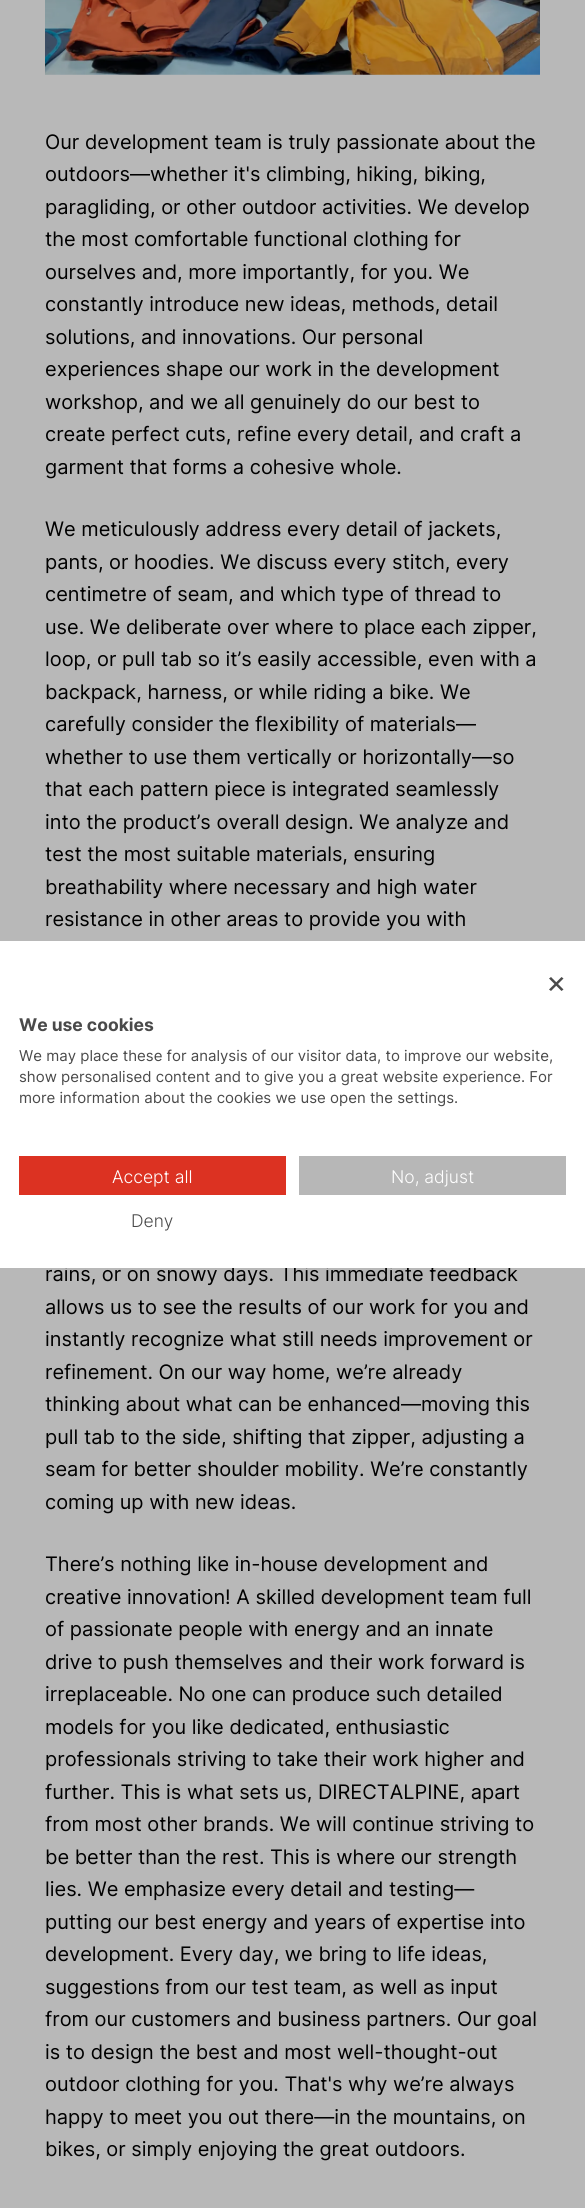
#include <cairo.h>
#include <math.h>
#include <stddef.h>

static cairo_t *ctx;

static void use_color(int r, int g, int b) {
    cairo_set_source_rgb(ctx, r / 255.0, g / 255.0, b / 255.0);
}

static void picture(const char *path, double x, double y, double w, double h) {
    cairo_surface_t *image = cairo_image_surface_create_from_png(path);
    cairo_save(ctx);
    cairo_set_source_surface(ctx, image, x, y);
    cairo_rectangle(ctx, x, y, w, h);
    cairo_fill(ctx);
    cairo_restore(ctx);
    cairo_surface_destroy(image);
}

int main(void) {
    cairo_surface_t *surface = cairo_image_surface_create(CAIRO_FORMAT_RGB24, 585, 2208);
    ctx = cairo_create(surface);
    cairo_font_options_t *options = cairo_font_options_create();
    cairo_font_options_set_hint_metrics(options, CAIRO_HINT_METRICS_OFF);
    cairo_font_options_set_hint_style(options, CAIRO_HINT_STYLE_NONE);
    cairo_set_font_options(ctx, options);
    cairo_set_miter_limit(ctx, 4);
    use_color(184, 184, 184);
    cairo_paint(ctx);
    picture("img1.png", 45, 0, 495, 75);
    cairo_select_font_face(ctx, "Inter", CAIRO_FONT_SLANT_NORMAL, CAIRO_FONT_WEIGHT_NORMAL);
    cairo_set_font_size(ctx, 20);
    use_color(0, 0, 0);
    cairo_move_to(ctx, 45, 149);
    cairo_show_text(ctx, "Our development team is truly passionate about the");
    cairo_move_to(ctx, 45, 181);
    cairo_show_text(ctx, "outdoors—whether it's climbing, hiking, biking,");
    cairo_move_to(ctx, 45, 214);
    cairo_show_text(ctx, "paragliding, or other outdoor activities. We develop");
    cairo_move_to(ctx, 45, 246);
    cairo_show_text(ctx, "the most comfortable functional clothing for");
    cairo_move_to(ctx, 45, 279);
    cairo_show_text(ctx, "ourselves and, more importantly, for you. We");
    cairo_move_to(ctx, 45, 311);
    cairo_show_text(ctx, "constantly introduce new ideas, methods, detail");
    cairo_move_to(ctx, 45, 344);
    cairo_show_text(ctx, "solutions, and innovations. Our personal");
    cairo_move_to(ctx, 45, 376);
    cairo_show_text(ctx, "experiences shape our work in the development");
    cairo_move_to(ctx, 45, 409);
    cairo_show_text(ctx, "workshop, and we all genuinely do our best to");
    cairo_move_to(ctx, 45, 441);
    cairo_show_text(ctx, "create perfect cuts, refine every detail, and craft a");
    cairo_move_to(ctx, 45, 474);
    cairo_show_text(ctx, "garment that forms a cohesive whole.");
    cairo_move_to(ctx, 45, 536);
    cairo_show_text(ctx, "We meticulously address every detail of jackets,");
    cairo_move_to(ctx, 45, 569);
    cairo_show_text(ctx, "pants, or hoodies. We discuss every stitch, every");
    cairo_move_to(ctx, 45, 601);
    cairo_show_text(ctx, "centimetre of seam, and which type of thread to");
    cairo_move_to(ctx, 45, 634);
    cairo_show_text(ctx, "use. We deliberate over where to place each zipper,");
    cairo_move_to(ctx, 45, 666);
    cairo_show_text(ctx, "loop, or pull tab so it’s easily accessible, even with a");
    cairo_move_to(ctx, 45, 699);
    cairo_show_text(ctx, "backpack, harness, or while riding a bike. We");
    cairo_move_to(ctx, 45, 731);
    cairo_show_text(ctx, "carefully consider the flexibility of materials—");
    cairo_move_to(ctx, 45, 764);
    cairo_show_text(ctx, "whether to use them vertically or horizontally—so");
    cairo_move_to(ctx, 45, 796);
    cairo_show_text(ctx, "that each pattern piece is integrated seamlessly");
    cairo_move_to(ctx, 45, 829);
    cairo_show_text(ctx, "into the product’s overall design. We analyze and");
    cairo_move_to(ctx, 45, 861);
    cairo_show_text(ctx, "test the most suitable materials, ensuring");
    cairo_move_to(ctx, 45, 894);
    cairo_show_text(ctx, "breathability where necessary and high water");
    cairo_move_to(ctx, 45, 926);
    cairo_show_text(ctx, "resistance in other areas to provide you with");
    cairo_move_to(ctx, 45, 1281);
    cairo_show_text(ctx, "rains, or on snowy days. This immediate feedback");
    cairo_move_to(ctx, 45, 1314);
    cairo_show_text(ctx, "allows us to see the results of our work for you and");
    cairo_move_to(ctx, 45, 1346);
    cairo_show_text(ctx, "instantly recognize what still needs improvement or");
    cairo_move_to(ctx, 45, 1379);
    cairo_show_text(ctx, "refinement. On our way home, we’re already");
    cairo_move_to(ctx, 45, 1411);
    cairo_show_text(ctx, "thinking about what can be enhanced—moving this");
    cairo_move_to(ctx, 45, 1444);
    cairo_show_text(ctx, "pull tab to the side, shifting that zipper, adjusting a");
    cairo_move_to(ctx, 45, 1476);
    cairo_show_text(ctx, "seam for better shoulder mobility. We’re constantly");
    cairo_move_to(ctx, 45, 1509);
    cairo_show_text(ctx, "coming up with new ideas.");
    cairo_move_to(ctx, 45, 1571);
    cairo_show_text(ctx, "There’s nothing like in-house development and");
    cairo_move_to(ctx, 45, 1604);
    cairo_show_text(ctx, "creative innovation! A skilled development team full");
    cairo_move_to(ctx, 45, 1636);
    cairo_show_text(ctx, "of passionate people with energy and an innate");
    cairo_move_to(ctx, 45, 1669);
    cairo_show_text(ctx, "drive to push themselves and their work forward is");
    cairo_move_to(ctx, 45, 1701);
    cairo_show_text(ctx, "irreplaceable. No one can produce such detailed");
    cairo_move_to(ctx, 45, 1734);
    cairo_show_text(ctx, "models for you like dedicated, enthusiastic");
    cairo_move_to(ctx, 45, 1766);
    cairo_show_text(ctx, "professionals striving to take their work higher and");
    cairo_move_to(ctx, 45, 1799);
    cairo_show_text(ctx, "further. This is what sets us, DIRECTALPINE, apart");
    cairo_move_to(ctx, 45, 1831);
    cairo_show_text(ctx, "from most other brands. We will continue striving to");
    cairo_move_to(ctx, 45, 1864);
    cairo_show_text(ctx, "be better than the rest. This is where our strength");
    cairo_move_to(ctx, 45, 1896);
    cairo_show_text(ctx, "lies. We emphasize every detail and testing—");
    cairo_move_to(ctx, 45, 1929);
    cairo_show_text(ctx, "putting our best energy and years of expertise into");
    cairo_move_to(ctx, 45, 1961);
    cairo_show_text(ctx, "development. Every day, we bring to life ideas,");
    cairo_move_to(ctx, 45, 1994);
    cairo_show_text(ctx, "suggestions from our test team, as well as input");
    cairo_move_to(ctx, 45, 2026);
    cairo_show_text(ctx, "from our customers and business partners. Our goal");
    cairo_move_to(ctx, 45, 2059);
    cairo_show_text(ctx, "is to design the best and most well-thought-out");
    cairo_move_to(ctx, 45, 2091);
    cairo_show_text(ctx, "outdoor clothing for you. That's why we’re always");
    cairo_move_to(ctx, 45, 2124);
    cairo_show_text(ctx, "happy to meet you out there—in the mountains, on");
    cairo_move_to(ctx, 45, 2156);
    cairo_show_text(ctx, "bikes, or simply enjoying the great outdoors.");
    use_color(255, 255, 255);
    cairo_rectangle(ctx, 0, 941, 585, 327);
    cairo_fill(ctx);
    use_color(74, 74, 74);
    cairo_new_path(ctx);
    cairo_move_to(ctx, 561.5, 977);
    cairo_line_to(ctx, 563.5, 978.5);
    cairo_line_to(ctx, 551, 991);
    cairo_line_to(ctx, 549, 989.5);
    cairo_close_path(ctx);
    cairo_fill(ctx);
    cairo_new_path(ctx);
    cairo_move_to(ctx, 549, 978.5);
    cairo_line_to(ctx, 551, 977);
    cairo_line_to(ctx, 563.5, 989.5);
    cairo_line_to(ctx, 561.5, 991);
    cairo_close_path(ctx);
    cairo_fill(ctx);
    cairo_select_font_face(ctx, "Inter", CAIRO_FONT_SLANT_NORMAL, CAIRO_FONT_WEIGHT_BOLD);
    cairo_set_font_size(ctx, 17.5);
    cairo_move_to(ctx, 19, 1031);
    cairo_show_text(ctx, "We use cookies");
    cairo_select_font_face(ctx, "Inter", CAIRO_FONT_SLANT_NORMAL, CAIRO_FONT_WEIGHT_NORMAL);
    cairo_set_font_size(ctx, 15);
    cairo_move_to(ctx, 19, 1061);
    cairo_show_text(ctx, "We may place these for analysis of our visitor data, to improve our website,");
    cairo_move_to(ctx, 19, 1082);
    cairo_show_text(ctx, "show personalised content and to give you a great website experience. For");
    cairo_move_to(ctx, 19, 1103);
    cairo_show_text(ctx, "more information about the cookies we use open the settings.");
    use_color(220, 50, 34);
    cairo_rectangle(ctx, 19, 1156, 267, 39);
    cairo_fill(ctx);
    cairo_select_font_face(ctx, "Inter Light", CAIRO_FONT_SLANT_NORMAL, CAIRO_FONT_WEIGHT_NORMAL);
    cairo_set_font_size(ctx, 17.5);
    use_color(255, 255, 255);
    cairo_move_to(ctx, 112, 1183);
    cairo_show_text(ctx, "Accept all");
    use_color(183, 183, 183);
    cairo_rectangle(ctx, 299, 1156, 267, 39);
    cairo_fill(ctx);
    use_color(255, 255, 255);
    cairo_move_to(ctx, 391, 1183);
    cairo_show_text(ctx, "No, adjust");
    use_color(74, 74, 74);
    cairo_move_to(ctx, 131, 1227);
    cairo_show_text(ctx, "Deny");
    cairo_surface_write_to_png(surface, "result.png");
    cairo_font_options_destroy(options);
    cairo_destroy(ctx);
    cairo_surface_destroy(surface);
    return 0;
}
